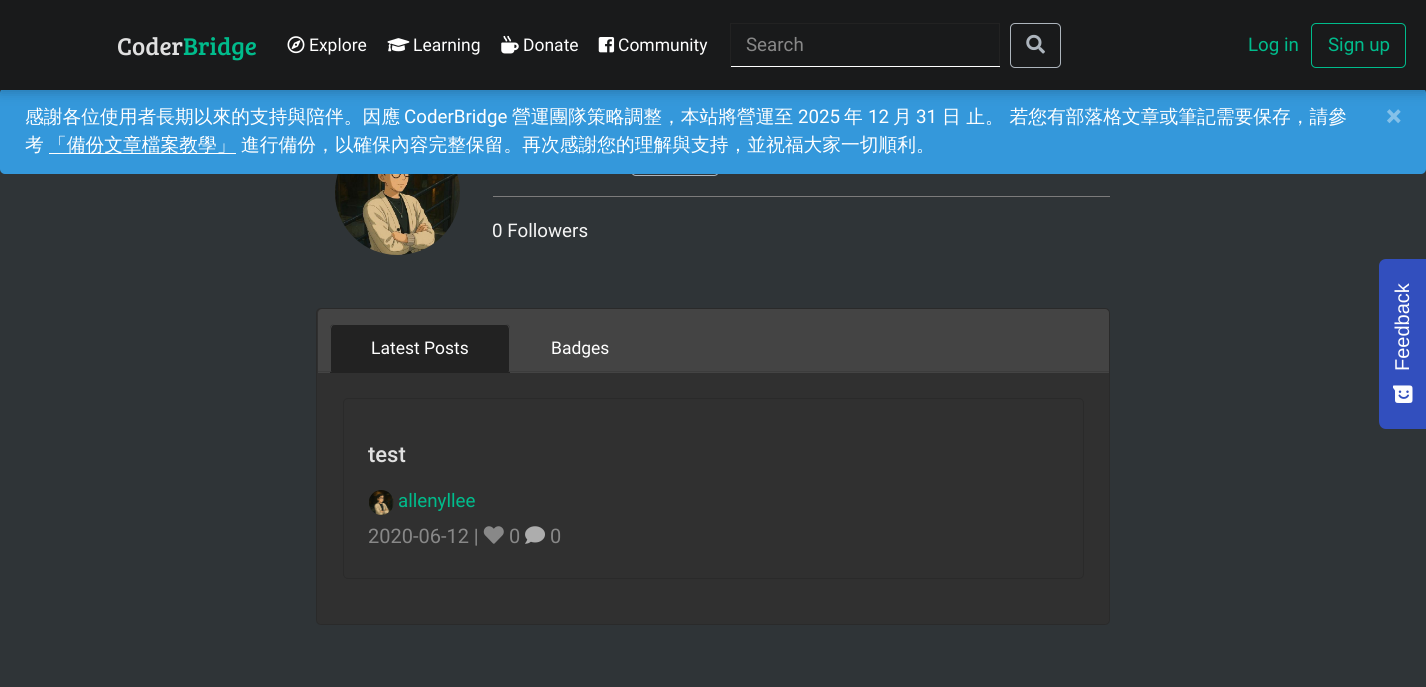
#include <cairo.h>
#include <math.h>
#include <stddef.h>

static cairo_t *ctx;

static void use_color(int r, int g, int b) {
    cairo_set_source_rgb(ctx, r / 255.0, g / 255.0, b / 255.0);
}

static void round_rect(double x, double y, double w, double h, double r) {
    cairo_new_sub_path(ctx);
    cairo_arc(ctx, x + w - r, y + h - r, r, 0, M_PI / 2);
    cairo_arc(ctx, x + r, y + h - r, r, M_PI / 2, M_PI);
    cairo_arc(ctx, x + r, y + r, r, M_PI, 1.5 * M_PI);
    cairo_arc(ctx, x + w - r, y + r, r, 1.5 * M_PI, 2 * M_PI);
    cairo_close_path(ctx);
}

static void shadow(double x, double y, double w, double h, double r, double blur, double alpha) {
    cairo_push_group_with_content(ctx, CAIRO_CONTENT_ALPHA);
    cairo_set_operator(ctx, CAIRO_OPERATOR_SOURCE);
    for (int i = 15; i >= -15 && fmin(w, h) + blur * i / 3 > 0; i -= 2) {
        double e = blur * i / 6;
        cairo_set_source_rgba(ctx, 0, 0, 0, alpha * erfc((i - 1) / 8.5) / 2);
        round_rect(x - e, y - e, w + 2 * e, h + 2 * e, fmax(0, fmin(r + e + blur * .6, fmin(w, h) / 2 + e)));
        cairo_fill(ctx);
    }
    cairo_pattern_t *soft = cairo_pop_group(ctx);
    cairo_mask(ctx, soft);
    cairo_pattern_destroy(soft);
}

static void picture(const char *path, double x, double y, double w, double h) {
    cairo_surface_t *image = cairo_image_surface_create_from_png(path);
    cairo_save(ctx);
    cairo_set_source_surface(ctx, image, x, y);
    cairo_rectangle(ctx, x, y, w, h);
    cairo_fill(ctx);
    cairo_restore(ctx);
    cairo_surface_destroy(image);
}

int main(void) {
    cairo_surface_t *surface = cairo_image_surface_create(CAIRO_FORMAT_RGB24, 1426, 687);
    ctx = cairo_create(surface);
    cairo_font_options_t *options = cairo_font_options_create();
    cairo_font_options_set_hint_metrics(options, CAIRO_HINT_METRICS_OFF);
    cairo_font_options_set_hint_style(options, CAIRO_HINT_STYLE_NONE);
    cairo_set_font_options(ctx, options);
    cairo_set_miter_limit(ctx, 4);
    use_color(47, 52, 55);
    cairo_paint(ctx);
    round_rect(631.5, 130.5, 87, 45, 4.5);
    use_color(173, 181, 189);
    cairo_set_line_width(ctx, 1);
    cairo_stroke(ctx);
    use_color(52, 152, 219);
    round_rect(0, 88, 1426, 86, 5);
    cairo_fill(ctx);
    use_color(0, 0, 0);
    shadow(0, 3, 1426, 90, 0, 6, 0.2);
    use_color(25, 26, 27);
    cairo_rectangle(ctx, 0, 0, 1426, 90);
    cairo_fill(ctx);
    cairo_select_font_face(ctx, "Bree Serif", CAIRO_FONT_SLANT_NORMAL, CAIRO_FONT_WEIGHT_NORMAL);
    cairo_set_font_size(ctx, 25);
    use_color(224, 224, 224);
    cairo_move_to(ctx, 117, 55);
    cairo_show_text(ctx, "Coder");
    use_color(0, 188, 140);
    cairo_move_to(ctx, 183, 55);
    cairo_show_text(ctx, "Bridge");
    picture("img1.png", 287, 36, 18, 18);
    cairo_select_font_face(ctx, "Roboto", CAIRO_FONT_SLANT_NORMAL, CAIRO_FONT_WEIGHT_NORMAL);
    cairo_set_font_size(ctx, 17.5);
    use_color(255, 255, 255);
    cairo_move_to(ctx, 309, 51);
    cairo_show_text(ctx, "Explore");
    picture("img2.png", 387, 38, 23, 14);
    cairo_move_to(ctx, 413, 51);
    cairo_show_text(ctx, "Learning");
    picture("img3.png", 501, 35, 18, 19);
    cairo_move_to(ctx, 523, 51);
    cairo_show_text(ctx, "Donate");
    picture("img4.png", 598, 37, 17, 16);
    cairo_move_to(ctx, 618, 51);
    cairo_show_text(ctx, "Community");
    use_color(34, 34, 34);
    cairo_rectangle(ctx, 730, 23, 270, 1);
    cairo_fill(ctx);
    cairo_rectangle(ctx, 999, 23, 1, 45);
    cairo_fill(ctx);
    use_color(255, 255, 255);
    cairo_rectangle(ctx, 730, 66, 270, 1);
    cairo_fill(ctx);
    use_color(34, 34, 34);
    cairo_rectangle(ctx, 730, 23, 1, 45);
    cairo_fill(ctx);
    cairo_set_font_size(ctx, 18.75);
    use_color(136, 136, 136);
    cairo_move_to(ctx, 746, 51);
    cairo_show_text(ctx, "Search");
    round_rect(1010.5, 23.5, 50, 44, 4.5);
    use_color(173, 181, 189);
    cairo_stroke(ctx);
    picture("img5.png", 1026, 34, 19, 20);
    use_color(0, 188, 140);
    cairo_move_to(ctx, 1248, 51);
    cairo_show_text(ctx, "Log in");
    round_rect(1311.5, 23.5, 94, 44, 4.5);
    cairo_stroke(ctx);
    cairo_move_to(ctx, 1328, 51);
    cairo_show_text(ctx, "Sign up");
    cairo_select_font_face(ctx, "WenQuanYi Zen Hei Medium", CAIRO_FONT_SLANT_NORMAL, CAIRO_FONT_WEIGHT_NORMAL);
    use_color(255, 255, 255);
    cairo_move_to(ctx, 25, 123);
    cairo_show_text(ctx, "感謝各位使用者長期以來的支持與陪伴。因應");
    cairo_select_font_face(ctx, "Roboto", CAIRO_FONT_SLANT_NORMAL, CAIRO_FONT_WEIGHT_NORMAL);
    cairo_move_to(ctx, 404, 123);
    cairo_show_text(ctx, "CoderBridge");
    cairo_select_font_face(ctx, "WenQuanYi Zen Hei Medium", CAIRO_FONT_SLANT_NORMAL, CAIRO_FONT_WEIGHT_NORMAL);
    cairo_move_to(ctx, 512, 123);
    cairo_show_text(ctx, "營運團隊策略調整，本站將營運至");
    cairo_select_font_face(ctx, "Roboto", CAIRO_FONT_SLANT_NORMAL, CAIRO_FONT_WEIGHT_NORMAL);
    cairo_move_to(ctx, 798, 123);
    cairo_show_text(ctx, "2025");
    cairo_select_font_face(ctx, "WenQuanYi Zen Hei Medium", CAIRO_FONT_SLANT_NORMAL, CAIRO_FONT_WEIGHT_NORMAL);
    cairo_move_to(ctx, 844, 123);
    cairo_show_text(ctx, "年");
    cairo_select_font_face(ctx, "Roboto", CAIRO_FONT_SLANT_NORMAL, CAIRO_FONT_WEIGHT_NORMAL);
    cairo_move_to(ctx, 868, 123);
    cairo_show_text(ctx, "12");
    cairo_select_font_face(ctx, "WenQuanYi Zen Hei Medium", CAIRO_FONT_SLANT_NORMAL, CAIRO_FONT_WEIGHT_NORMAL);
    cairo_move_to(ctx, 893, 123);
    cairo_show_text(ctx, "月");
    cairo_select_font_face(ctx, "Roboto", CAIRO_FONT_SLANT_NORMAL, CAIRO_FONT_WEIGHT_NORMAL);
    cairo_move_to(ctx, 916, 123);
    cairo_show_text(ctx, "31");
    cairo_select_font_face(ctx, "WenQuanYi Zen Hei Medium", CAIRO_FONT_SLANT_NORMAL, CAIRO_FONT_WEIGHT_NORMAL);
    cairo_move_to(ctx, 942, 123);
    cairo_show_text(ctx, "日 止。 若您有部落格文章或筆記需要保存，請參");
    cairo_select_font_face(ctx, "Roboto", CAIRO_FONT_SLANT_NORMAL, CAIRO_FONT_WEIGHT_BOLD);
    cairo_set_font_size(ctx, 28);
    use_color(133, 193, 233);
    cairo_move_to(ctx, 1386, 126);
    cairo_show_text(ctx, "×");
    cairo_select_font_face(ctx, "WenQuanYi Zen Hei Medium", CAIRO_FONT_SLANT_NORMAL, CAIRO_FONT_WEIGHT_NORMAL);
    cairo_set_font_size(ctx, 18.75);
    use_color(255, 255, 255);
    cairo_move_to(ctx, 25, 151);
    cairo_show_text(ctx, "考");
    cairo_rectangle(ctx, 49, 153, 187, 1);
    cairo_fill(ctx);
    cairo_move_to(ctx, 48, 151);
    cairo_show_text(ctx, "「備份文章檔案教學」");
    cairo_move_to(ctx, 241, 151);
    cairo_show_text(ctx, "進行備份，以確保內容完整保留。再次感謝您的理解與支持，並祝福大家一切順利。");
    picture("img6.png", 335, 174, 125, 81);
    use_color(124, 123, 123);
    cairo_rectangle(ctx, 493, 196, 617, 1);
    cairo_fill(ctx);
    cairo_select_font_face(ctx, "Roboto", CAIRO_FONT_SLANT_NORMAL, CAIRO_FONT_WEIGHT_NORMAL);
    use_color(245, 245, 245);
    cairo_move_to(ctx, 492, 237);
    cairo_show_text(ctx, "0 Followers");
    use_color(48, 48, 48);
    round_rect(316, 308, 794, 317, 5);
    cairo_fill(ctx);
    round_rect(316.5, 308.5, 793, 316, 4.5);
    cairo_set_source_rgba(ctx, 0, 0, 0, 0.12);
    cairo_stroke(ctx);
    use_color(68, 68, 68);
    cairo_new_path(ctx);
    cairo_move_to(ctx, 322, 309);
    cairo_line_to(ctx, 1105, 309);
    cairo_curve_to(ctx, 1107, 309, 1109, 311, 1109, 313);
    cairo_line_to(ctx, 1109, 373);
    cairo_line_to(ctx, 318, 373);
    cairo_line_to(ctx, 318, 313);
    cairo_curve_to(ctx, 318, 311, 320, 309, 322, 309);
    cairo_close_path(ctx);
    cairo_fill(ctx);
    use_color(60, 60, 60);
    cairo_rectangle(ctx, 318, 371, 791, 1);
    cairo_fill(ctx);
    use_color(34, 34, 34);
    cairo_new_path(ctx);
    cairo_move_to(ctx, 335, 324);
    cairo_line_to(ctx, 505, 324);
    cairo_curve_to(ctx, 508, 324, 510, 326, 510, 329);
    cairo_line_to(ctx, 510, 373);
    cairo_line_to(ctx, 330, 373);
    cairo_line_to(ctx, 330, 329);
    cairo_curve_to(ctx, 330, 326, 332, 324, 335, 324);
    cairo_close_path(ctx);
    cairo_fill(ctx);
    use_color(68, 68, 68);
    cairo_new_path(ctx);
    cairo_move_to(ctx, 335, 324);
    cairo_curve_to(ctx, 334, 324, 332, 324, 332, 325);
    cairo_line_to(ctx, 332, 326);
    cairo_curve_to(ctx, 333, 325, 334, 325, 335, 325);
    cairo_line_to(ctx, 505, 325);
    cairo_curve_to(ctx, 506, 325, 507, 325, 508, 326);
    cairo_line_to(ctx, 508, 325);
    cairo_curve_to(ctx, 508, 324, 506, 324, 505, 324);
    cairo_close_path(ctx);
    cairo_fill(ctx);
    cairo_new_path(ctx);
    cairo_move_to(ctx, 508, 325);
    cairo_curve_to(ctx, 509, 326, 510, 327, 510, 329);
    cairo_line_to(ctx, 510, 372);
    cairo_line_to(ctx, 508, 371);
    cairo_line_to(ctx, 509, 371);
    cairo_line_to(ctx, 509, 329);
    cairo_curve_to(ctx, 509, 328, 508, 327, 508, 326);
    cairo_close_path(ctx);
    cairo_fill(ctx);
    cairo_new_path(ctx);
    cairo_move_to(ctx, 330, 329);
    cairo_line_to(ctx, 330, 372);
    cairo_line_to(ctx, 332, 371);
    cairo_line_to(ctx, 331, 371);
    cairo_line_to(ctx, 331, 329);
    cairo_curve_to(ctx, 331, 328, 332, 327, 332, 326);
    cairo_line_to(ctx, 332, 325);
    cairo_curve_to(ctx, 331, 326, 330, 327, 330, 329);
    cairo_close_path(ctx);
    cairo_fill(ctx);
    cairo_set_font_size(ctx, 17.5);
    use_color(255, 255, 255);
    cairo_move_to(ctx, 371, 354);
    cairo_show_text(ctx, "Latest Posts");
    cairo_move_to(ctx, 551, 354);
    cairo_show_text(ctx, "Badges");
    round_rect(343.5, 398.5, 740, 180, 4.5);
    use_color(42, 42, 42);
    cairo_stroke(ctx);
    cairo_select_font_face(ctx, "Roboto Medium", CAIRO_FONT_SLANT_NORMAL, CAIRO_FONT_WEIGHT_NORMAL);
    cairo_set_font_size(ctx, 22);
    use_color(224, 224, 224);
    cairo_move_to(ctx, 368, 462);
    cairo_show_text(ctx, "test");
    picture("img7.png", 369, 490, 25, 25);
    cairo_select_font_face(ctx, "Roboto", CAIRO_FONT_SLANT_NORMAL, CAIRO_FONT_WEIGHT_NORMAL);
    cairo_set_font_size(ctx, 18.75);
    use_color(0, 188, 140);
    cairo_move_to(ctx, 398, 507);
    cairo_show_text(ctx, "allenyllee");
    cairo_set_font_size(ctx, 20);
    use_color(136, 136, 136);
    cairo_move_to(ctx, 368, 543);
    cairo_show_text(ctx, "2020-06-12 |");
    picture("img8.png", 483, 526, 21, 18);
    cairo_move_to(ctx, 509, 543);
    cairo_show_text(ctx, "0");
    picture("img9.png", 525, 526, 20, 18);
    cairo_move_to(ctx, 550, 543);
    cairo_show_text(ctx, "0");
    use_color(50, 79, 190);
    cairo_new_path(ctx);
    cairo_move_to(ctx, 1379, 421);
    cairo_line_to(ctx, 1379, 266);
    cairo_curve_to(ctx, 1379, 262, 1382, 259, 1386, 259);
    cairo_line_to(ctx, 1426, 259);
    cairo_line_to(ctx, 1426, 429);
    cairo_line_to(ctx, 1386, 429);
    cairo_curve_to(ctx, 1382, 429, 1379, 426, 1379, 421);
    cairo_close_path(ctx);
    cairo_fill(ctx);
    cairo_select_font_face(ctx, "Liberation Sans", CAIRO_FONT_SLANT_NORMAL, CAIRO_FONT_WEIGHT_NORMAL);
    use_color(255, 255, 255);
    cairo_save(ctx);
    cairo_translate(ctx, 1409, 371);
    cairo_rotate(ctx, -90 * M_PI / 180);
    cairo_move_to(ctx, 0, 0);
    cairo_show_text(ctx, "Feedback");
    cairo_restore(ctx);
    picture("img10.png", 1393, 385, 20, 18);
    cairo_surface_write_to_png(surface, "result.png");
    cairo_font_options_destroy(options);
    cairo_destroy(ctx);
    cairo_surface_destroy(surface);
    return 0;
}
